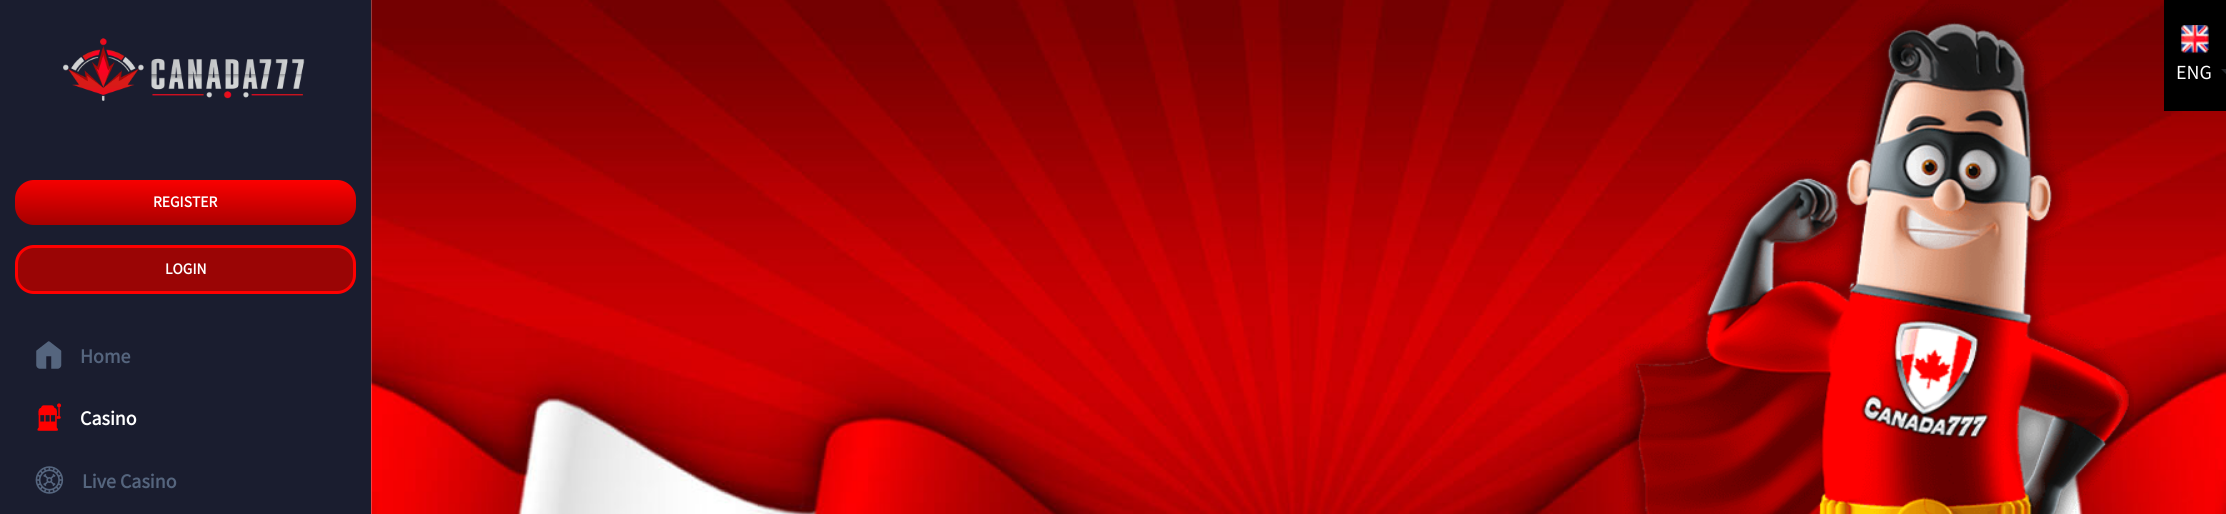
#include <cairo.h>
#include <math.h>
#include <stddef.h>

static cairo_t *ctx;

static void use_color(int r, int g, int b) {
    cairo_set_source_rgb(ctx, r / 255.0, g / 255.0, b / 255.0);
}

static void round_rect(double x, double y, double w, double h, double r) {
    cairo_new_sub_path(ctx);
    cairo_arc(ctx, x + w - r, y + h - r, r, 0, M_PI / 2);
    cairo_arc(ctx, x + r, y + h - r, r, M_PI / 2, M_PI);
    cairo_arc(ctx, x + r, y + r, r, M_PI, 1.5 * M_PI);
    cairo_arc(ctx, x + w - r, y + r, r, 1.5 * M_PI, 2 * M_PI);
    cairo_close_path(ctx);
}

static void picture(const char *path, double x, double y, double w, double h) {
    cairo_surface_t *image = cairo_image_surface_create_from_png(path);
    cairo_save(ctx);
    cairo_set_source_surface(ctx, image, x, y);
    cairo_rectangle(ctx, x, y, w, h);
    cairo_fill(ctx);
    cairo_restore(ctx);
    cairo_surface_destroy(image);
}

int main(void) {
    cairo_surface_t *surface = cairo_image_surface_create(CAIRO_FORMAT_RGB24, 2226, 514);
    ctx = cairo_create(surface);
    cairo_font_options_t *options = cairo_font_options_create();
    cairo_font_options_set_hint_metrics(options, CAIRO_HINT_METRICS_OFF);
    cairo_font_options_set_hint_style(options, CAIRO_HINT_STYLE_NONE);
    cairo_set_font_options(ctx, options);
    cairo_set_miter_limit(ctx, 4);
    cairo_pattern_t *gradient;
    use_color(255, 255, 255);
    cairo_paint(ctx);
    picture("img6.png", 371, 0, 1855, 514);
    use_color(0, 0, 0);
    cairo_rectangle(ctx, 2164, 0, 62, 111);
    cairo_fill(ctx);
    picture("img1.png", 2181, 25, 28, 30);
    cairo_select_font_face(ctx, "Source Sans Pro", CAIRO_FONT_SLANT_NORMAL, CAIRO_FONT_WEIGHT_NORMAL);
    cairo_set_font_size(ctx, 20);
    use_color(255, 255, 255);
    cairo_move_to(ctx, 2176, 79);
    cairo_show_text(ctx, "ENG");
    use_color(33, 37, 41);
    cairo_new_path(ctx);
    cairo_move_to(ctx, 2221, 69);
    cairo_line_to(ctx, 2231, 69);
    cairo_line_to(ctx, 2226, 74);
    cairo_close_path(ctx);
    cairo_fill(ctx);
    use_color(26, 29, 47);
    cairo_rectangle(ctx, 0, 0, 371, 514);
    cairo_fill(ctx);
    picture("img2.png", 63, 38, 242, 63);
    gradient = cairo_pattern_create_linear(185, 228, 186, 177);
    cairo_pattern_add_color_stop_rgba(gradient, 0, 0.647, 0, 0, 1);
    cairo_pattern_add_color_stop_rgba(gradient, 1, 1, 0, 0, 1);
    cairo_set_source(ctx, gradient);
    cairo_pattern_destroy(gradient);
    round_rect(15, 180, 341, 45, 19);
    cairo_fill(ctx);
    cairo_select_font_face(ctx, "Source Sans Pro", CAIRO_FONT_SLANT_NORMAL, CAIRO_FONT_WEIGHT_BOLD);
    cairo_set_font_size(ctx, 15.5);
    use_color(255, 255, 255);
    cairo_move_to(ctx, 153, 207);
    cairo_show_text(ctx, "REGISTER");
    use_color(154, 5, 5);
    round_rect(16.5, 246.5, 338, 46, 17.5);
    cairo_fill_preserve(ctx);
    use_color(255, 0, 0);
    cairo_set_line_width(ctx, 3);
    cairo_stroke(ctx);
    use_color(255, 255, 255);
    cairo_move_to(ctx, 165, 274);
    cairo_show_text(ctx, "LOGIN");
    picture("img3.png", 36, 341, 26, 28);
    cairo_set_font_size(ctx, 20);
    use_color(85, 101, 126);
    cairo_move_to(ctx, 80, 363);
    cairo_show_text(ctx, "Home");
    picture("img4.png", 37, 403, 25, 28);
    use_color(255, 255, 255);
    cairo_move_to(ctx, 80, 425);
    cairo_show_text(ctx, "Casino");
    picture("img5.png", 35, 466, 29, 28);
    use_color(85, 101, 126);
    cairo_move_to(ctx, 82, 488);
    cairo_show_text(ctx, "Live Casino");
    picture("img7.png", 1617, 4, 517, 510);
    cairo_surface_write_to_png(surface, "result.png");
    cairo_font_options_destroy(options);
    cairo_destroy(ctx);
    cairo_surface_destroy(surface);
    return 0;
}
